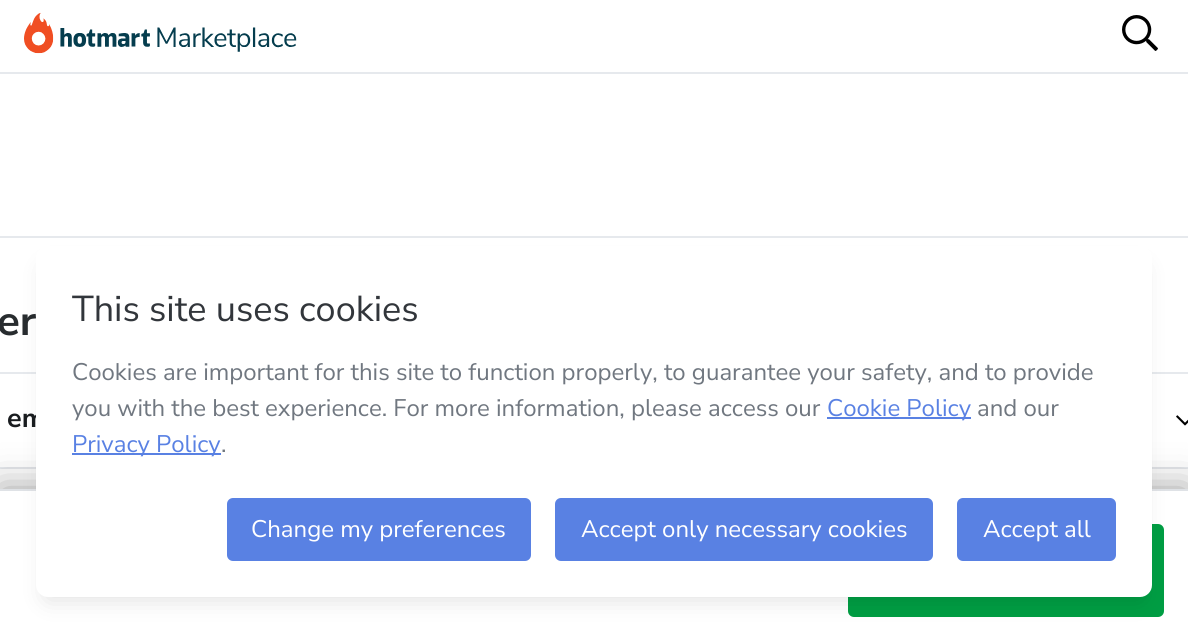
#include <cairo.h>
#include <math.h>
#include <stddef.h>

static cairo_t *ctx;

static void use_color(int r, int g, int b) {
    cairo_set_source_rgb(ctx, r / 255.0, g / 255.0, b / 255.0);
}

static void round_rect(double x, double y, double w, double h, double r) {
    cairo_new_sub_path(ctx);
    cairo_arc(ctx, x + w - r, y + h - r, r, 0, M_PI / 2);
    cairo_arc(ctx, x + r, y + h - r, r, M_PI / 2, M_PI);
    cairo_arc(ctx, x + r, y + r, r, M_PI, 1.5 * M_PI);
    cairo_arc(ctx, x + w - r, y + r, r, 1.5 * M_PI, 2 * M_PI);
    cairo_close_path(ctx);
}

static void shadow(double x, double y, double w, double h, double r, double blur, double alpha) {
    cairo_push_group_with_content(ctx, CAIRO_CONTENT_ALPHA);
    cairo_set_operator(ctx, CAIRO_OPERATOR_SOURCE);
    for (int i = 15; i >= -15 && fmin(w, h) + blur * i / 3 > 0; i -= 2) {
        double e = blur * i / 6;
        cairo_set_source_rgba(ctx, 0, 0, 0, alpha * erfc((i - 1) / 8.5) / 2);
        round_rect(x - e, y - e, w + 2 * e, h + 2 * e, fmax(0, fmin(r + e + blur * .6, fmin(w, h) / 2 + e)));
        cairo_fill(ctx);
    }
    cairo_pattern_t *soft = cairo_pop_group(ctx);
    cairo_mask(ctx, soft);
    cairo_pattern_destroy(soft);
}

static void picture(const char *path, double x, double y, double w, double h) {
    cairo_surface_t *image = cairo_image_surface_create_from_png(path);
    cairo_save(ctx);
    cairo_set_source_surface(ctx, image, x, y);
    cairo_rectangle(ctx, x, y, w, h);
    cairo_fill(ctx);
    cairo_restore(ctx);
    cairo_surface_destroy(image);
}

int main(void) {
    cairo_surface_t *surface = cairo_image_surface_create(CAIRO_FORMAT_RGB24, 1188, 632);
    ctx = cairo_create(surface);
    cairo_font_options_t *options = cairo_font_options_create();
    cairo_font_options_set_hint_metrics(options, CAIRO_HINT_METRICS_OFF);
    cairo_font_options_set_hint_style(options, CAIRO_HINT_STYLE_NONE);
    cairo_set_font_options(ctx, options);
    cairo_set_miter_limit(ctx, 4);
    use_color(255, 255, 255);
    cairo_paint(ctx);
    use_color(230, 233, 237);
    cairo_rectangle(ctx, 0, 72, 1188, 2);
    cairo_fill(ctx);
    picture("img1.png", 24, 12, 273, 42);
    picture("img2.png", 1122, 15, 36, 36);
    cairo_rectangle(ctx, 0, 236, 1188, 2);
    cairo_fill(ctx);
    cairo_select_font_face(ctx, "Nunito Sans", CAIRO_FONT_SLANT_NORMAL, CAIRO_FONT_WEIGHT_BOLD);
    cairo_set_font_size(ctx, 42);
    use_color(40, 44, 47);
    cairo_move_to(ctx, -3, 335);
    cairo_show_text(ctx, "er");
    use_color(230, 233, 237);
    cairo_new_path(ctx);
    cairo_move_to(ctx, -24, 372);
    cairo_line_to(ctx, 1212, 372);
    cairo_curve_to(ctx, 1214, 372, 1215, 373, 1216, 374);
    cairo_line_to(ctx, -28, 374);
    cairo_curve_to(ctx, -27, 373, -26, 372, -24, 372);
    cairo_close_path(ctx);
    cairo_fill(ctx);
    cairo_set_font_size(ctx, 27);
    use_color(25, 28, 31);
    cairo_move_to(ctx, 7, 427);
    cairo_show_text(ctx, "em");
    picture("img3.png", 1176, 415, 12, 11);
    use_color(230, 233, 237);
    cairo_rectangle(ctx, 0, 467, 1188, 2);
    cairo_fill(ctx);
    use_color(0, 0, 0);
    shadow(0, 489, 1188, 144, 0, 19, 0.4);
    use_color(255, 255, 255);
    cairo_rectangle(ctx, 0, 491, 1188, 141);
    cairo_fill(ctx);
    use_color(223, 226, 230);
    cairo_rectangle(ctx, 0, 489, 1188, 2);
    cairo_fill(ctx);
    use_color(0, 157, 67);
    round_rect(849, 525, 314, 91, 5);
    cairo_fill_preserve(ctx);
    cairo_stroke(ctx);
    use_color(0, 0, 0);
    shadow(45, 267, 1098, 333, 3, 12, 0.12);
    use_color(255, 255, 255);
    round_rect(36, 246, 1116, 351, 12);
    cairo_fill(ctx);
    cairo_select_font_face(ctx, "Nunito Sans", CAIRO_FONT_SLANT_NORMAL, CAIRO_FONT_WEIGHT_NORMAL);
    cairo_set_font_size(ctx, 36);
    use_color(50, 54, 59);
    cairo_move_to(ctx, 72, 321);
    cairo_show_text(ctx, "This site uses cookies");
    cairo_set_font_size(ctx, 24);
    use_color(112, 119, 128);
    cairo_move_to(ctx, 72, 380);
    cairo_show_text(ctx, "Cookies are important for this site to function properly, to guarantee your safety, and to provide");
    cairo_move_to(ctx, 72, 416);
    cairo_show_text(ctx, "you with the best experience. For more information, please access our");
    use_color(89, 129, 227);
    cairo_rectangle(ctx, 827, 417, 144, 2);
    cairo_fill(ctx);
    cairo_move_to(ctx, 827, 416);
    cairo_show_text(ctx, "Cookie Policy");
    use_color(112, 119, 128);
    cairo_move_to(ctx, 977, 416);
    cairo_show_text(ctx, "and our");
    use_color(89, 129, 227);
    cairo_rectangle(ctx, 72, 453, 149, 2);
    cairo_fill(ctx);
    cairo_move_to(ctx, 72, 452);
    cairo_show_text(ctx, "Privacy Policy");
    use_color(112, 119, 128);
    cairo_move_to(ctx, 221, 452);
    cairo_show_text(ctx, ".");
    use_color(89, 129, 227);
    round_rect(228, 499, 302, 61, 5);
    cairo_fill_preserve(ctx);
    cairo_stroke(ctx);
    use_color(255, 255, 255);
    cairo_move_to(ctx, 251, 537);
    cairo_show_text(ctx, "Change my preferences");
    use_color(89, 129, 227);
    round_rect(556, 499, 376, 61, 5);
    cairo_fill_preserve(ctx);
    cairo_stroke(ctx);
    use_color(255, 255, 255);
    cairo_move_to(ctx, 581, 537);
    cairo_show_text(ctx, "Accept only necessary cookies");
    use_color(89, 129, 227);
    round_rect(958, 499, 157, 61, 5);
    cairo_fill_preserve(ctx);
    cairo_stroke(ctx);
    use_color(255, 255, 255);
    cairo_move_to(ctx, 983, 537);
    cairo_show_text(ctx, "Accept all");
    cairo_surface_write_to_png(surface, "result.png");
    cairo_font_options_destroy(options);
    cairo_destroy(ctx);
    cairo_surface_destroy(surface);
    return 0;
}
